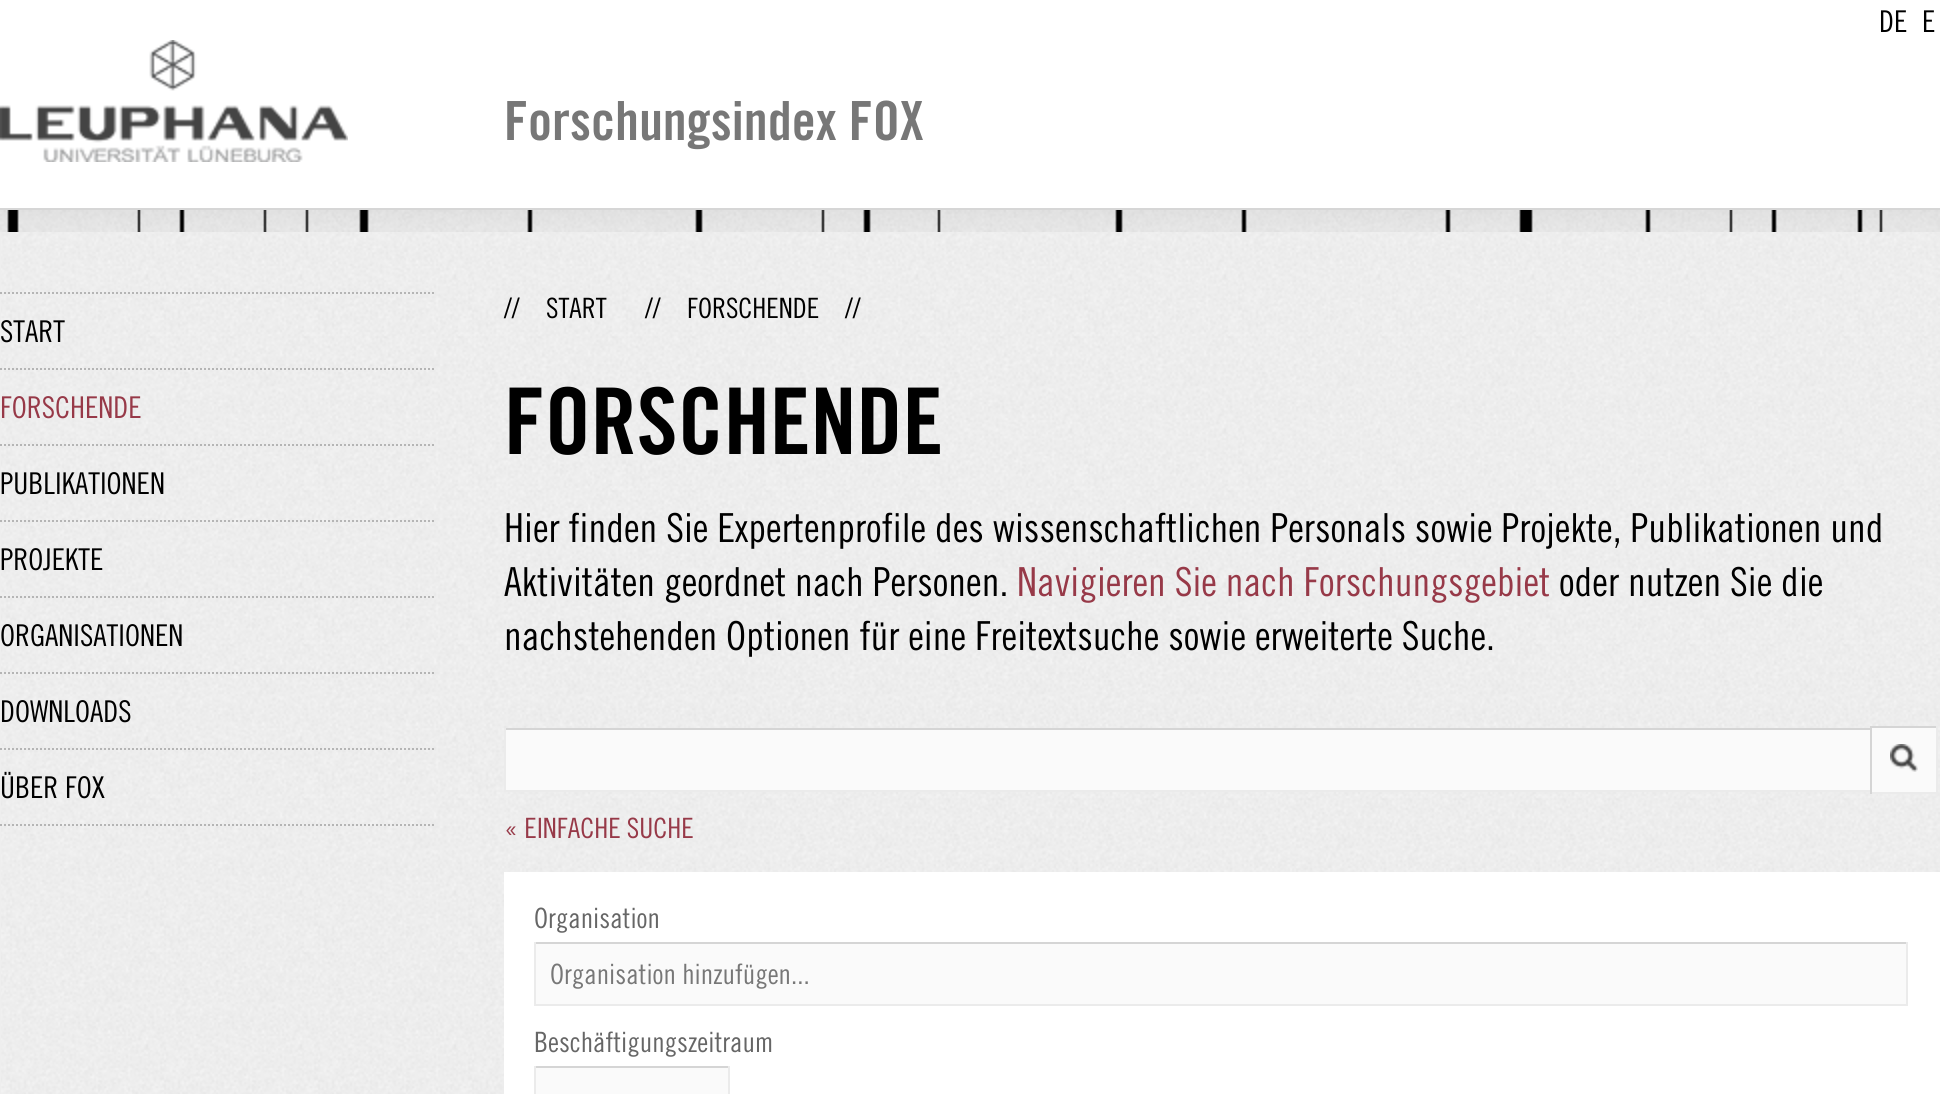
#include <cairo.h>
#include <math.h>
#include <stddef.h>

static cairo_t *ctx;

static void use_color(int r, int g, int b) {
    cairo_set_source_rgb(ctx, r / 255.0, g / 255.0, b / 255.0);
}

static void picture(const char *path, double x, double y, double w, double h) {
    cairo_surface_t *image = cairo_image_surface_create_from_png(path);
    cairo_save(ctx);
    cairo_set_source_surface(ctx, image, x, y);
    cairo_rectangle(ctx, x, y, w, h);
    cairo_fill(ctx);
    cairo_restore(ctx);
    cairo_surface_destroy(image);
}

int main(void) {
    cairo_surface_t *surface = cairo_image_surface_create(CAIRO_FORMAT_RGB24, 1940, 1094);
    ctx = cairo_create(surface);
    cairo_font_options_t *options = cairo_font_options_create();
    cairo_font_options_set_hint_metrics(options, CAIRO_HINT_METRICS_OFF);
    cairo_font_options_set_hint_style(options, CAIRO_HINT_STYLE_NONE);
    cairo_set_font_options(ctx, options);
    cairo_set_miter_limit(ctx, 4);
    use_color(238, 238, 238);
    cairo_paint(ctx);
    picture("img1.png", 1, 232, 1939, 862);
    use_color(255, 255, 255);
    cairo_rectangle(ctx, 0, 0, 1940, 208);
    cairo_fill(ctx);
    use_color(214, 214, 214);
    cairo_rectangle(ctx, 0, 208, 1940, 2);
    cairo_fill(ctx);
    cairo_select_font_face(ctx, "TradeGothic", CAIRO_FONT_SLANT_NORMAL, CAIRO_FONT_WEIGHT_NORMAL);
    cairo_set_font_size(ctx, 30);
    use_color(0, 0, 0);
    cairo_move_to(ctx, 1879, 32);
    cairo_show_text(ctx, "DE");
    cairo_move_to(ctx, 1922, 32);
    cairo_show_text(ctx, "E");
    picture("img2.png", 0, 40, 348, 122);
    cairo_select_font_face(ctx, "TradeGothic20", CAIRO_FONT_SLANT_NORMAL, CAIRO_FONT_WEIGHT_BOLD);
    cairo_set_font_size(ctx, 54);
    use_color(119, 119, 119);
    cairo_move_to(ctx, 504, 140);
    cairo_show_text(ctx, "Forschungsindex FOX");
    picture("img3.png", 0, 210, 1940, 22);
    cairo_new_path(ctx);
    cairo_move_to(ctx, 0, 825);
    cairo_line_to(ctx, 434, 825);
    use_color(181, 181, 181);
    cairo_set_dash(ctx, (double[]){2, 2}, 2, 0);
    cairo_stroke(ctx);
    cairo_new_path(ctx);
    cairo_move_to(ctx, 0, 293);
    cairo_line_to(ctx, 434, 293);
    cairo_stroke(ctx);
    cairo_select_font_face(ctx, "TradeGothic", CAIRO_FONT_SLANT_NORMAL, CAIRO_FONT_WEIGHT_NORMAL);
    cairo_set_font_size(ctx, 30);
    use_color(0, 0, 0);
    cairo_move_to(ctx, 0, 342);
    cairo_show_text(ctx, "START");
    cairo_new_path(ctx);
    cairo_move_to(ctx, 0, 369);
    cairo_line_to(ctx, 434, 369);
    use_color(181, 181, 181);
    cairo_stroke(ctx);
    use_color(151, 57, 72);
    cairo_move_to(ctx, 0, 418);
    cairo_show_text(ctx, "FORSCHENDE");
    cairo_new_path(ctx);
    cairo_move_to(ctx, 0, 445);
    cairo_line_to(ctx, 434, 445);
    use_color(181, 181, 181);
    cairo_stroke(ctx);
    use_color(0, 0, 0);
    cairo_move_to(ctx, 0, 494);
    cairo_show_text(ctx, "PUBLIKATIONEN");
    cairo_new_path(ctx);
    cairo_move_to(ctx, 0, 521);
    cairo_line_to(ctx, 434, 521);
    use_color(181, 181, 181);
    cairo_stroke(ctx);
    use_color(0, 0, 0);
    cairo_move_to(ctx, 0, 570);
    cairo_show_text(ctx, "PROJEKTE");
    cairo_new_path(ctx);
    cairo_move_to(ctx, 0, 597);
    cairo_line_to(ctx, 434, 597);
    use_color(181, 181, 181);
    cairo_stroke(ctx);
    use_color(0, 0, 0);
    cairo_move_to(ctx, 0, 646);
    cairo_show_text(ctx, "ORGANISATIONEN");
    cairo_new_path(ctx);
    cairo_move_to(ctx, 0, 673);
    cairo_line_to(ctx, 434, 673);
    use_color(181, 181, 181);
    cairo_stroke(ctx);
    use_color(0, 0, 0);
    cairo_move_to(ctx, 0, 722);
    cairo_show_text(ctx, "DOWNLOADS");
    cairo_new_path(ctx);
    cairo_move_to(ctx, 0, 749);
    cairo_line_to(ctx, 434, 749);
    use_color(181, 181, 181);
    cairo_stroke(ctx);
    use_color(0, 0, 0);
    cairo_move_to(ctx, 0, 798);
    cairo_show_text(ctx, "ÜBER FOX");
    cairo_set_font_size(ctx, 28);
    cairo_move_to(ctx, 504, 318);
    cairo_show_text(ctx, "//");
    cairo_move_to(ctx, 546, 318);
    cairo_show_text(ctx, "START");
    cairo_move_to(ctx, 645, 318);
    cairo_show_text(ctx, "//");
    cairo_move_to(ctx, 687, 318);
    cairo_show_text(ctx, "FORSCHENDE");
    cairo_move_to(ctx, 845, 318);
    cairo_show_text(ctx, "//");
    cairo_select_font_face(ctx, "TradeGothic20", CAIRO_FONT_SLANT_NORMAL, CAIRO_FONT_WEIGHT_BOLD);
    cairo_set_font_size(ctx, 92);
    cairo_move_to(ctx, 504, 454);
    cairo_show_text(ctx, "FORSCHENDE");
    cairo_select_font_face(ctx, "TradeGothic", CAIRO_FONT_SLANT_NORMAL, CAIRO_FONT_WEIGHT_NORMAL);
    cairo_set_font_size(ctx, 40);
    cairo_move_to(ctx, 504, 542);
    cairo_show_text(ctx, "Hier finden Sie Expertenprofile des wissenschaftlichen Personals sowie Projekte, Publikationen und");
    cairo_move_to(ctx, 504, 596);
    cairo_show_text(ctx, "Aktivitäten geordnet nach Personen.");
    use_color(151, 57, 72);
    cairo_move_to(ctx, 1017, 596);
    cairo_show_text(ctx, "Navigieren Sie nach Forschungsgebiet");
    use_color(0, 0, 0);
    cairo_move_to(ctx, 1559, 596);
    cairo_show_text(ctx, "oder nutzen Sie die");
    cairo_move_to(ctx, 504, 650);
    cairo_show_text(ctx, "nachstehenden Optionen für eine Freitextsuche sowie erweiterte Suche.");
    use_color(250, 250, 250);
    cairo_rectangle(ctx, 506, 730, 1364, 60);
    cairo_fill(ctx);
    use_color(213, 213, 213);
    cairo_rectangle(ctx, 504, 728, 1374, 2);
    cairo_fill(ctx);
    use_color(235, 235, 235);
    cairo_rectangle(ctx, 504, 790, 1374, 2);
    cairo_fill(ctx);
    cairo_rectangle(ctx, 504, 728, 2, 64);
    cairo_fill(ctx);
    use_color(250, 250, 250);
    cairo_rectangle(ctx, 1872, 728, 64, 64);
    cairo_fill(ctx);
    use_color(213, 213, 213);
    cairo_rectangle(ctx, 1870, 726, 68, 2);
    cairo_fill(ctx);
    use_color(235, 235, 235);
    cairo_rectangle(ctx, 1936, 726, 2, 68);
    cairo_fill(ctx);
    cairo_rectangle(ctx, 1870, 792, 68, 2);
    cairo_fill(ctx);
    use_color(213, 213, 213);
    cairo_rectangle(ctx, 1870, 726, 2, 68);
    cairo_fill(ctx);
    picture("img4.png", 1890, 744, 28, 28);
    cairo_set_font_size(ctx, 28);
    use_color(151, 57, 72);
    cairo_move_to(ctx, 504, 838);
    cairo_show_text(ctx, "« EINFACHE SUCHE");
    use_color(255, 255, 255);
    cairo_rectangle(ctx, 504, 872, 1436, 222);
    cairo_fill(ctx);
    use_color(102, 102, 102);
    cairo_move_to(ctx, 534, 928);
    cairo_show_text(ctx, "Organisation");
    use_color(250, 250, 250);
    cairo_rectangle(ctx, 536, 944, 1370, 60);
    cairo_fill(ctx);
    use_color(213, 213, 213);
    cairo_rectangle(ctx, 534, 942, 1374, 2);
    cairo_fill(ctx);
    use_color(235, 235, 235);
    cairo_rectangle(ctx, 1906, 942, 2, 64);
    cairo_fill(ctx);
    cairo_rectangle(ctx, 534, 1004, 1374, 2);
    cairo_fill(ctx);
    cairo_rectangle(ctx, 534, 942, 2, 64);
    cairo_fill(ctx);
    use_color(119, 119, 119);
    cairo_move_to(ctx, 550, 984);
    cairo_show_text(ctx, "Organisation hinzufügen...");
    use_color(102, 102, 102);
    cairo_move_to(ctx, 534, 1052);
    cairo_show_text(ctx, "Beschäftigungszeitraum");
    use_color(250, 250, 250);
    cairo_rectangle(ctx, 536, 1068, 192, 26);
    cairo_fill(ctx);
    use_color(213, 213, 213);
    cairo_rectangle(ctx, 534, 1066, 196, 2);
    cairo_fill(ctx);
    use_color(235, 235, 235);
    cairo_rectangle(ctx, 728, 1066, 2, 28);
    cairo_fill(ctx);
    cairo_rectangle(ctx, 534, 1066, 2, 28);
    cairo_fill(ctx);
    cairo_surface_write_to_png(surface, "result.png");
    cairo_font_options_destroy(options);
    cairo_destroy(ctx);
    cairo_surface_destroy(surface);
    return 0;
}
